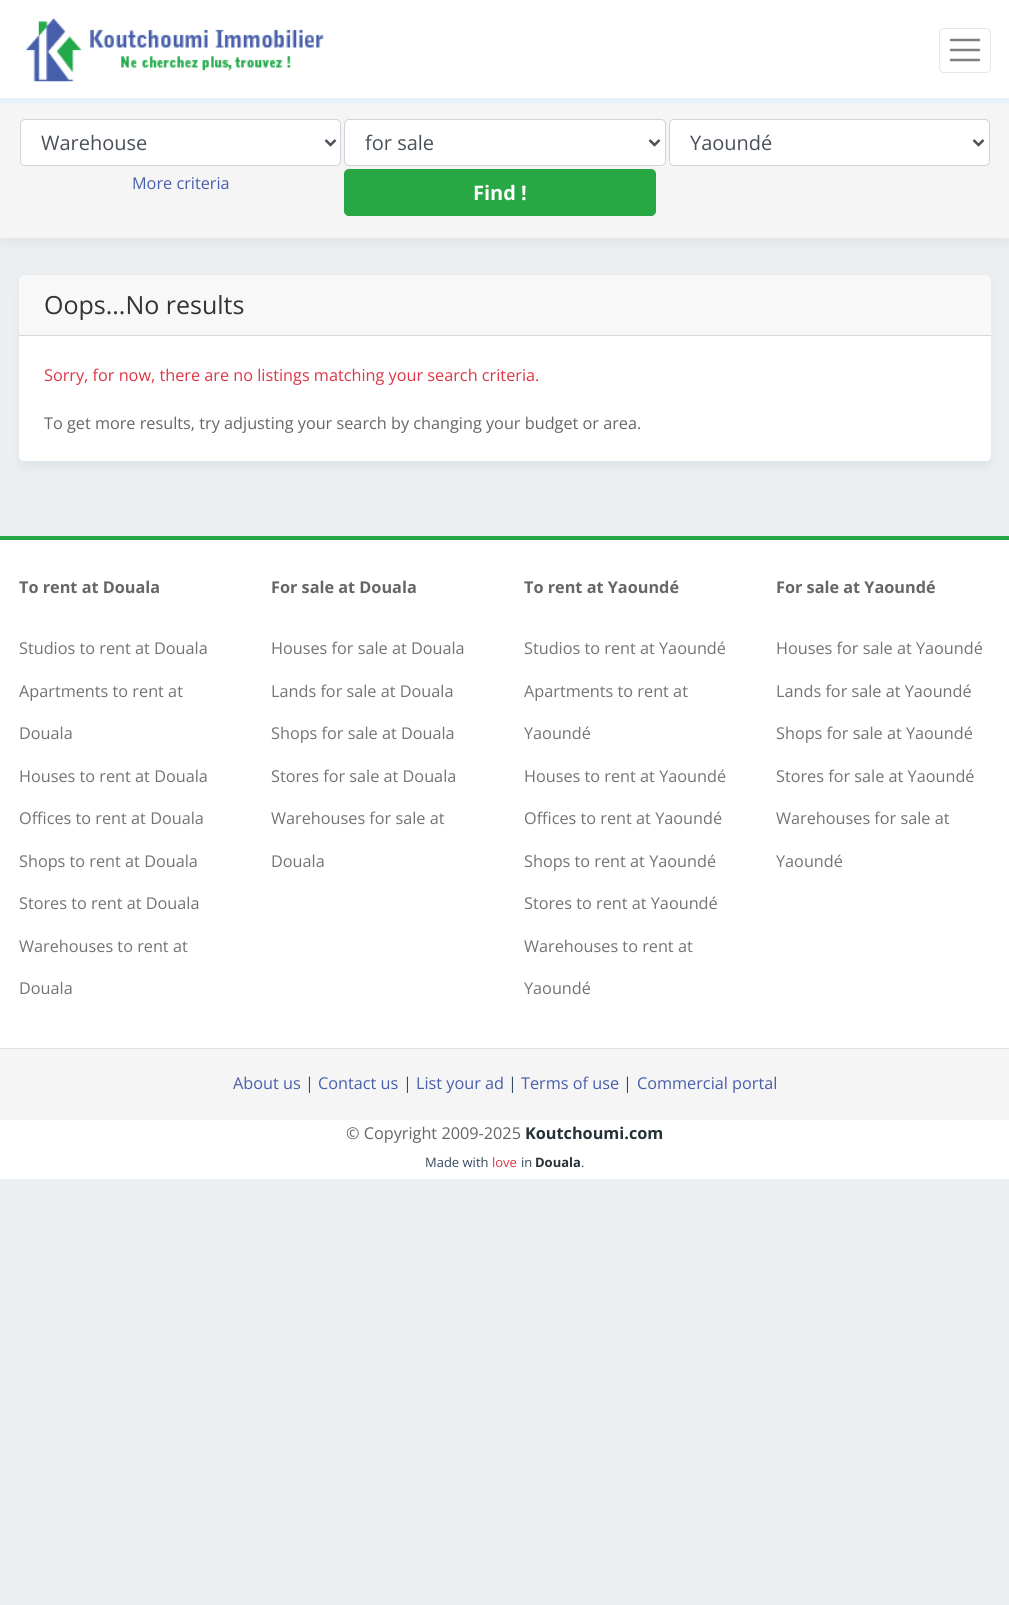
#include <cairo.h>
#include <math.h>
#include <stddef.h>

static cairo_t *ctx;

static void use_color(int r, int g, int b) {
    cairo_set_source_rgb(ctx, r / 255.0, g / 255.0, b / 255.0);
}

static void round_rect(double x, double y, double w, double h, double r) {
    cairo_new_sub_path(ctx);
    cairo_arc(ctx, x + w - r, y + h - r, r, 0, M_PI / 2);
    cairo_arc(ctx, x + r, y + h - r, r, M_PI / 2, M_PI);
    cairo_arc(ctx, x + r, y + r, r, M_PI, 1.5 * M_PI);
    cairo_arc(ctx, x + w - r, y + r, r, 1.5 * M_PI, 2 * M_PI);
    cairo_close_path(ctx);
}

static void shadow(double x, double y, double w, double h, double r, double blur, double alpha) {
    cairo_push_group_with_content(ctx, CAIRO_CONTENT_ALPHA);
    cairo_set_operator(ctx, CAIRO_OPERATOR_SOURCE);
    for (int i = 15; i >= -15 && fmin(w, h) + blur * i / 3 > 0; i -= 2) {
        double e = blur * i / 6;
        cairo_set_source_rgba(ctx, 0, 0, 0, alpha * erfc((i - 1) / 8.5) / 2);
        round_rect(x - e, y - e, w + 2 * e, h + 2 * e, fmax(0, fmin(r + e + blur * .6, fmin(w, h) / 2 + e)));
        cairo_fill(ctx);
    }
    cairo_pattern_t *soft = cairo_pop_group(ctx);
    cairo_mask(ctx, soft);
    cairo_pattern_destroy(soft);
}

static void picture(const char *path, double x, double y, double w, double h) {
    cairo_surface_t *image = cairo_image_surface_create_from_png(path);
    cairo_save(ctx);
    cairo_set_source_surface(ctx, image, x, y);
    cairo_rectangle(ctx, x, y, w, h);
    cairo_fill(ctx);
    cairo_restore(ctx);
    cairo_surface_destroy(image);
}

int main(void) {
    cairo_surface_t *surface = cairo_image_surface_create(CAIRO_FORMAT_RGB24, 1009, 1605);
    ctx = cairo_create(surface);
    cairo_font_options_t *options = cairo_font_options_create();
    cairo_font_options_set_hint_metrics(options, CAIRO_HINT_METRICS_OFF);
    cairo_font_options_set_hint_style(options, CAIRO_HINT_STYLE_NONE);
    cairo_set_font_options(ctx, options);
    cairo_set_miter_limit(ctx, 4);
    use_color(236, 239, 241);
    cairo_paint(ctx);
    use_color(207, 216, 221);
    shadow(0, 104, 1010, 140, 0, 4, 0.38);
    use_color(245, 245, 245);
    cairo_rectangle(ctx, 0, 98, 1009, 140);
    cairo_fill(ctx);
    use_color(218, 235, 255);
    shadow(0, 6, 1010, 98, 0, 2, 0.51);
    use_color(255, 255, 255);
    cairo_rectangle(ctx, 0, 0, 1009, 98);
    cairo_fill(ctx);
    picture("img1.png", 26, 18, 298, 64);
    round_rect(939.5, 28.5, 51, 44, 4.5);
    use_color(230, 230, 230);
    cairo_set_line_width(ctx, 1);
    cairo_stroke(ctx);
    cairo_new_path(ctx);
    cairo_move_to(ctx, 951, 40);
    cairo_line_to(ctx, 979, 40);
    cairo_move_to(ctx, 951, 50);
    cairo_line_to(ctx, 979, 50);
    cairo_move_to(ctx, 951, 60);
    cairo_line_to(ctx, 979, 60);
    use_color(128, 128, 128);
    cairo_set_line_width(ctx, 2.5);
    cairo_set_line_cap(ctx, CAIRO_LINE_CAP_ROUND);
    cairo_stroke(ctx);
    use_color(255, 255, 255);
    round_rect(20.5, 119.5, 320, 46, 4.5);
    cairo_fill_preserve(ctx);
    use_color(206, 212, 218);
    cairo_set_line_width(ctx, 1);
    cairo_set_line_cap(ctx, CAIRO_LINE_CAP_BUTT);
    cairo_stroke(ctx);
    cairo_new_path(ctx);
    cairo_move_to(ctx, 325.5, 140);
    cairo_line_to(ctx, 330.5, 145);
    cairo_line_to(ctx, 335.5, 140);
    use_color(73, 80, 87);
    cairo_set_line_width(ctx, 2.5);
    cairo_stroke(ctx);
    cairo_select_font_face(ctx, "Open Sans", CAIRO_FONT_SLANT_NORMAL, CAIRO_FONT_WEIGHT_NORMAL);
    cairo_set_font_size(ctx, 20);
    cairo_move_to(ctx, 41, 150);
    cairo_show_text(ctx, "Warehouse");
    use_color(255, 255, 255);
    round_rect(344.5, 119.5, 321, 46, 4.5);
    cairo_fill_preserve(ctx);
    use_color(206, 212, 218);
    cairo_set_line_width(ctx, 1);
    cairo_stroke(ctx);
    cairo_new_path(ctx);
    cairo_move_to(ctx, 649.5, 140);
    cairo_line_to(ctx, 654.5, 145);
    cairo_line_to(ctx, 659.5, 140);
    use_color(73, 80, 87);
    cairo_set_line_width(ctx, 2.5);
    cairo_stroke(ctx);
    cairo_move_to(ctx, 365, 150);
    cairo_show_text(ctx, "for sale");
    use_color(255, 255, 255);
    round_rect(669.5, 119.5, 320, 46, 4.5);
    cairo_fill_preserve(ctx);
    use_color(206, 212, 218);
    cairo_set_line_width(ctx, 1);
    cairo_stroke(ctx);
    cairo_new_path(ctx);
    cairo_move_to(ctx, 973.5, 140);
    cairo_line_to(ctx, 978.5, 145);
    cairo_line_to(ctx, 983.5, 140);
    use_color(73, 80, 87);
    cairo_set_line_width(ctx, 2.5);
    cairo_stroke(ctx);
    cairo_move_to(ctx, 690, 150);
    cairo_show_text(ctx, "Yaoundé");
    cairo_set_font_size(ctx, 16.25);
    use_color(72, 94, 171);
    cairo_move_to(ctx, 132, 189);
    cairo_show_text(ctx, "More criteria");
    use_color(40, 167, 69);
    round_rect(344.5, 169.5, 311, 46, 4.5);
    cairo_fill_preserve(ctx);
    cairo_set_line_width(ctx, 1);
    cairo_stroke(ctx);
    cairo_select_font_face(ctx, "Open Sans", CAIRO_FONT_SLANT_NORMAL, CAIRO_FONT_WEIGHT_BOLD);
    cairo_set_font_size(ctx, 20);
    use_color(255, 255, 255);
    cairo_move_to(ctx, 473, 200);
    cairo_show_text(ctx, "Find !");
    use_color(224, 229, 232);
    shadow(19, 281, 972, 187, 5, 4.5, 1);
    use_color(255, 255, 255);
    round_rect(19, 275, 972, 186, 5);
    cairo_fill(ctx);
    cairo_set_source_rgba(ctx, 0, 0, 0, 0.03);
    cairo_rectangle(ctx, 19, 275, 972, 60);
    cairo_fill(ctx);
    use_color(216, 216, 216);
    cairo_rectangle(ctx, 19, 335, 972, 1);
    cairo_fill(ctx);
    cairo_select_font_face(ctx, "Open Sans", CAIRO_FONT_SLANT_NORMAL, CAIRO_FONT_WEIGHT_NORMAL);
    cairo_set_font_size(ctx, 25);
    use_color(51, 51, 51);
    cairo_move_to(ctx, 44, 314);
    cairo_show_text(ctx, "Oops...No results");
    cairo_set_font_size(ctx, 16.25);
    use_color(220, 53, 69);
    cairo_move_to(ctx, 44, 381);
    cairo_show_text(ctx, "Sorry, for now, there are no listings matching your search criteria.");
    use_color(102, 102, 102);
    cairo_move_to(ctx, 44, 429);
    cairo_show_text(ctx, "To get more results, try adjusting your search by changing your budget or area.");
    use_color(255, 255, 255);
    cairo_rectangle(ctx, 0, 540, 1009, 508);
    cairo_fill(ctx);
    use_color(40, 167, 69);
    cairo_rectangle(ctx, 0, 536, 1009, 4);
    cairo_fill(ctx);
    cairo_select_font_face(ctx, "Open Sans", CAIRO_FONT_SLANT_NORMAL, CAIRO_FONT_WEIGHT_BOLD);
    use_color(102, 102, 102);
    cairo_move_to(ctx, 19, 593);
    cairo_show_text(ctx, "To rent at Douala");
    cairo_select_font_face(ctx, "Open Sans", CAIRO_FONT_SLANT_NORMAL, CAIRO_FONT_WEIGHT_NORMAL);
    use_color(115, 115, 115);
    cairo_move_to(ctx, 19, 654);
    cairo_show_text(ctx, "Studios to rent at Douala");
    cairo_move_to(ctx, 19, 697);
    cairo_show_text(ctx, "Apartments to rent at");
    cairo_move_to(ctx, 19, 739);
    cairo_show_text(ctx, "Douala");
    cairo_move_to(ctx, 19, 782);
    cairo_show_text(ctx, "Houses to rent at Douala");
    cairo_move_to(ctx, 19, 824);
    cairo_show_text(ctx, "Offices to rent at Douala");
    cairo_move_to(ctx, 19, 867);
    cairo_show_text(ctx, "Shops to rent at Douala");
    cairo_move_to(ctx, 19, 909);
    cairo_show_text(ctx, "Stores to rent at Douala");
    cairo_move_to(ctx, 19, 952);
    cairo_show_text(ctx, "Warehouses to rent at");
    cairo_move_to(ctx, 19, 994);
    cairo_show_text(ctx, "Douala");
    cairo_select_font_face(ctx, "Open Sans", CAIRO_FONT_SLANT_NORMAL, CAIRO_FONT_WEIGHT_BOLD);
    use_color(102, 102, 102);
    cairo_move_to(ctx, 271, 593);
    cairo_show_text(ctx, "For sale at Douala");
    cairo_select_font_face(ctx, "Open Sans", CAIRO_FONT_SLANT_NORMAL, CAIRO_FONT_WEIGHT_NORMAL);
    use_color(115, 115, 115);
    cairo_move_to(ctx, 271, 654);
    cairo_show_text(ctx, "Houses for sale at Douala");
    cairo_move_to(ctx, 271, 697);
    cairo_show_text(ctx, "Lands for sale at Douala");
    cairo_move_to(ctx, 271, 739);
    cairo_show_text(ctx, "Shops for sale at Douala");
    cairo_move_to(ctx, 271, 782);
    cairo_show_text(ctx, "Stores for sale at Douala");
    cairo_move_to(ctx, 271, 824);
    cairo_show_text(ctx, "Warehouses for sale at");
    cairo_move_to(ctx, 271, 867);
    cairo_show_text(ctx, "Douala");
    cairo_select_font_face(ctx, "Open Sans", CAIRO_FONT_SLANT_NORMAL, CAIRO_FONT_WEIGHT_BOLD);
    use_color(102, 102, 102);
    cairo_move_to(ctx, 524, 593);
    cairo_show_text(ctx, "To rent at Yaoundé");
    cairo_select_font_face(ctx, "Open Sans", CAIRO_FONT_SLANT_NORMAL, CAIRO_FONT_WEIGHT_NORMAL);
    use_color(115, 115, 115);
    cairo_move_to(ctx, 524, 654);
    cairo_show_text(ctx, "Studios to rent at Yaoundé");
    cairo_move_to(ctx, 524, 697);
    cairo_show_text(ctx, "Apartments to rent at");
    cairo_move_to(ctx, 524, 739);
    cairo_show_text(ctx, "Yaoundé");
    cairo_move_to(ctx, 524, 782);
    cairo_show_text(ctx, "Houses to rent at Yaoundé");
    cairo_move_to(ctx, 524, 824);
    cairo_show_text(ctx, "Offices to rent at Yaoundé");
    cairo_move_to(ctx, 524, 867);
    cairo_show_text(ctx, "Shops to rent at Yaoundé");
    cairo_move_to(ctx, 524, 909);
    cairo_show_text(ctx, "Stores to rent at Yaoundé");
    cairo_move_to(ctx, 524, 952);
    cairo_show_text(ctx, "Warehouses to rent at");
    cairo_move_to(ctx, 524, 994);
    cairo_show_text(ctx, "Yaoundé");
    cairo_select_font_face(ctx, "Open Sans", CAIRO_FONT_SLANT_NORMAL, CAIRO_FONT_WEIGHT_BOLD);
    use_color(102, 102, 102);
    cairo_move_to(ctx, 776, 593);
    cairo_show_text(ctx, "For sale at Yaoundé");
    cairo_select_font_face(ctx, "Open Sans", CAIRO_FONT_SLANT_NORMAL, CAIRO_FONT_WEIGHT_NORMAL);
    use_color(115, 115, 115);
    cairo_move_to(ctx, 776, 654);
    cairo_show_text(ctx, "Houses for sale at Yaoundé");
    cairo_move_to(ctx, 776, 697);
    cairo_show_text(ctx, "Lands for sale at Yaoundé");
    cairo_move_to(ctx, 776, 739);
    cairo_show_text(ctx, "Shops for sale at Yaoundé");
    cairo_move_to(ctx, 776, 782);
    cairo_show_text(ctx, "Stores for sale at Yaoundé");
    cairo_move_to(ctx, 776, 824);
    cairo_show_text(ctx, "Warehouses for sale at");
    cairo_move_to(ctx, 776, 867);
    cairo_show_text(ctx, "Yaoundé");
    use_color(245, 245, 245);
    cairo_rectangle(ctx, 0, 1049, 1009, 71);
    cairo_fill(ctx);
    use_color(222, 226, 230);
    cairo_rectangle(ctx, 0, 1048, 1009, 1);
    cairo_fill(ctx);
    use_color(72, 94, 171);
    cairo_move_to(ctx, 233, 1089);
    cairo_show_text(ctx, "About us");
    use_color(52, 73, 94);
    cairo_move_to(ctx, 305, 1089);
    cairo_show_text(ctx, "|");
    use_color(72, 94, 171);
    cairo_move_to(ctx, 318, 1089);
    cairo_show_text(ctx, "Contact us");
    use_color(52, 73, 94);
    cairo_move_to(ctx, 403, 1089);
    cairo_show_text(ctx, "|");
    use_color(72, 94, 171);
    cairo_move_to(ctx, 416, 1089);
    cairo_show_text(ctx, "List your ad");
    use_color(52, 73, 94);
    cairo_move_to(ctx, 508, 1089);
    cairo_show_text(ctx, "|");
    use_color(72, 94, 171);
    cairo_move_to(ctx, 521, 1089);
    cairo_show_text(ctx, "Terms of use");
    use_color(52, 73, 94);
    cairo_move_to(ctx, 623, 1089);
    cairo_show_text(ctx, "|");
    use_color(72, 94, 171);
    cairo_move_to(ctx, 637, 1089);
    cairo_show_text(ctx, "Commercial portal");
    use_color(255, 255, 255);
    cairo_rectangle(ctx, 0, 1120, 1009, 59);
    cairo_fill(ctx);
    use_color(102, 102, 102);
    cairo_move_to(ctx, 346, 1139);
    cairo_show_text(ctx, "© Copyright 2009-2025");
    cairo_select_font_face(ctx, "Open Sans", CAIRO_FONT_SLANT_NORMAL, CAIRO_FONT_WEIGHT_BOLD);
    use_color(38, 50, 56);
    cairo_move_to(ctx, 525, 1139);
    cairo_show_text(ctx, "Koutchoumi.com");
    cairo_select_font_face(ctx, "Open Sans", CAIRO_FONT_SLANT_NORMAL, CAIRO_FONT_WEIGHT_NORMAL);
    cairo_set_font_size(ctx, 13);
    use_color(52, 73, 94);
    cairo_move_to(ctx, 425, 1167);
    cairo_show_text(ctx, "Made with");
    use_color(220, 53, 69);
    cairo_move_to(ctx, 492, 1167);
    cairo_show_text(ctx, "love");
    use_color(52, 73, 94);
    cairo_move_to(ctx, 521, 1167);
    cairo_show_text(ctx, "in");
    cairo_select_font_face(ctx, "Open Sans", CAIRO_FONT_SLANT_NORMAL, CAIRO_FONT_WEIGHT_BOLD);
    use_color(38, 50, 56);
    cairo_move_to(ctx, 535, 1167);
    cairo_show_text(ctx, "Douala");
    cairo_select_font_face(ctx, "Open Sans", CAIRO_FONT_SLANT_NORMAL, CAIRO_FONT_WEIGHT_NORMAL);
    use_color(52, 73, 94);
    cairo_move_to(ctx, 581, 1167);
    cairo_show_text(ctx, ".");
    cairo_surface_write_to_png(surface, "result.png");
    cairo_font_options_destroy(options);
    cairo_destroy(ctx);
    cairo_surface_destroy(surface);
    return 0;
}
